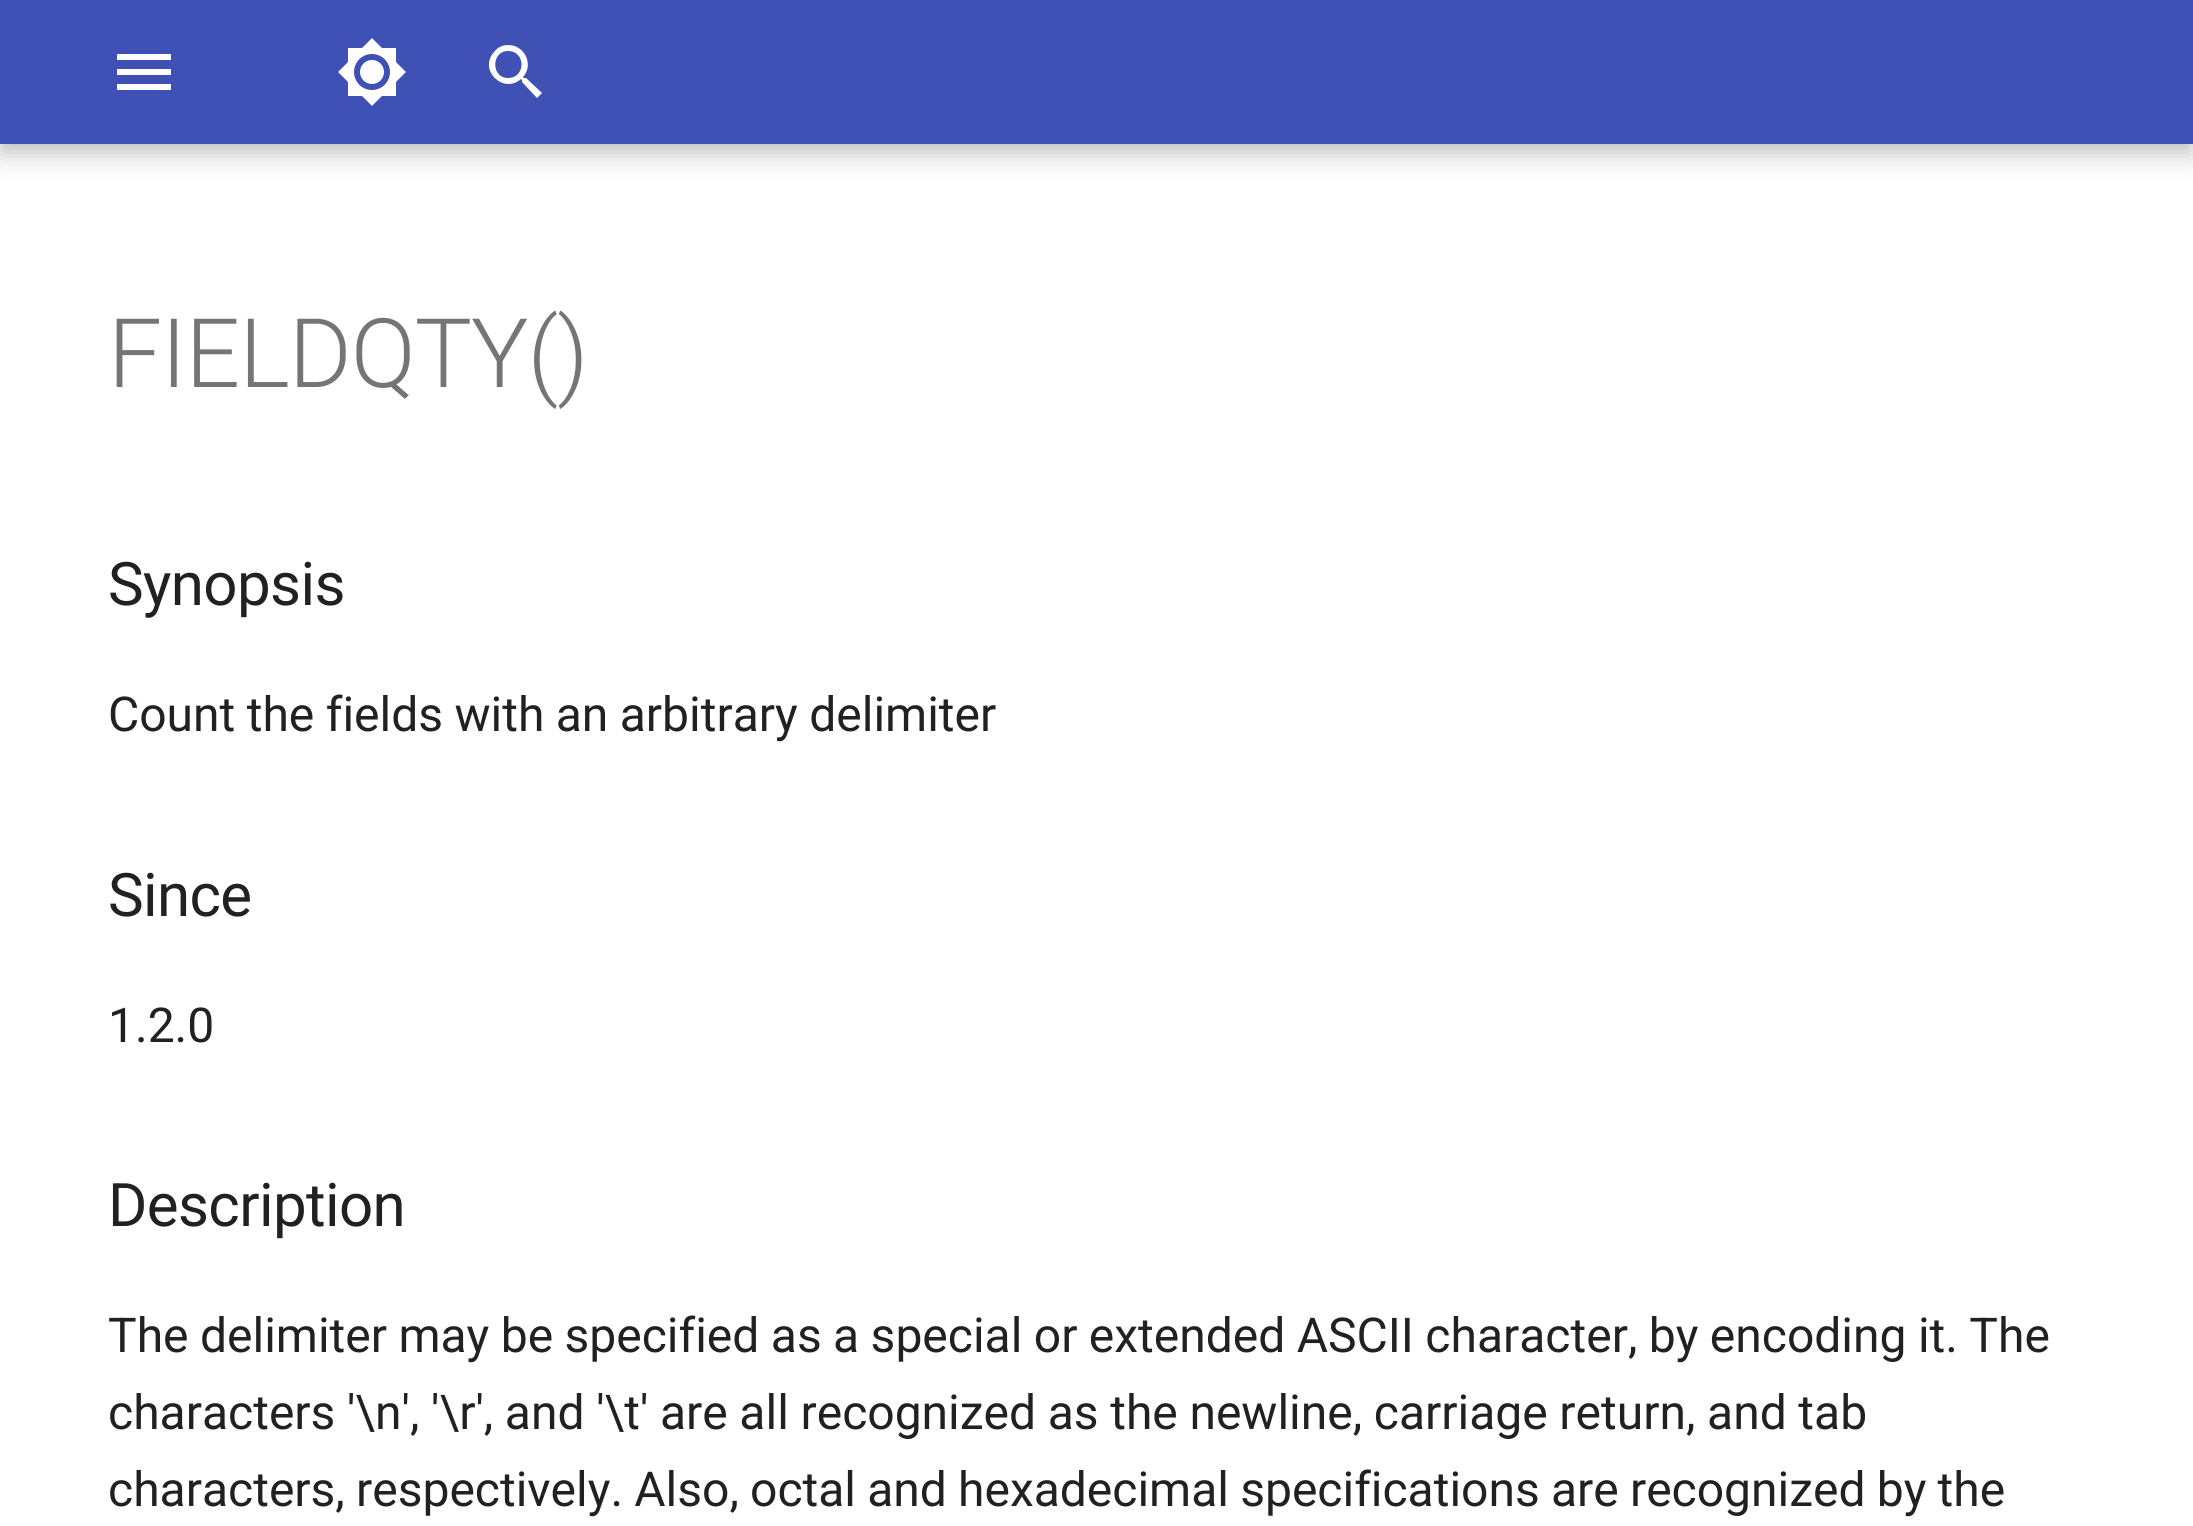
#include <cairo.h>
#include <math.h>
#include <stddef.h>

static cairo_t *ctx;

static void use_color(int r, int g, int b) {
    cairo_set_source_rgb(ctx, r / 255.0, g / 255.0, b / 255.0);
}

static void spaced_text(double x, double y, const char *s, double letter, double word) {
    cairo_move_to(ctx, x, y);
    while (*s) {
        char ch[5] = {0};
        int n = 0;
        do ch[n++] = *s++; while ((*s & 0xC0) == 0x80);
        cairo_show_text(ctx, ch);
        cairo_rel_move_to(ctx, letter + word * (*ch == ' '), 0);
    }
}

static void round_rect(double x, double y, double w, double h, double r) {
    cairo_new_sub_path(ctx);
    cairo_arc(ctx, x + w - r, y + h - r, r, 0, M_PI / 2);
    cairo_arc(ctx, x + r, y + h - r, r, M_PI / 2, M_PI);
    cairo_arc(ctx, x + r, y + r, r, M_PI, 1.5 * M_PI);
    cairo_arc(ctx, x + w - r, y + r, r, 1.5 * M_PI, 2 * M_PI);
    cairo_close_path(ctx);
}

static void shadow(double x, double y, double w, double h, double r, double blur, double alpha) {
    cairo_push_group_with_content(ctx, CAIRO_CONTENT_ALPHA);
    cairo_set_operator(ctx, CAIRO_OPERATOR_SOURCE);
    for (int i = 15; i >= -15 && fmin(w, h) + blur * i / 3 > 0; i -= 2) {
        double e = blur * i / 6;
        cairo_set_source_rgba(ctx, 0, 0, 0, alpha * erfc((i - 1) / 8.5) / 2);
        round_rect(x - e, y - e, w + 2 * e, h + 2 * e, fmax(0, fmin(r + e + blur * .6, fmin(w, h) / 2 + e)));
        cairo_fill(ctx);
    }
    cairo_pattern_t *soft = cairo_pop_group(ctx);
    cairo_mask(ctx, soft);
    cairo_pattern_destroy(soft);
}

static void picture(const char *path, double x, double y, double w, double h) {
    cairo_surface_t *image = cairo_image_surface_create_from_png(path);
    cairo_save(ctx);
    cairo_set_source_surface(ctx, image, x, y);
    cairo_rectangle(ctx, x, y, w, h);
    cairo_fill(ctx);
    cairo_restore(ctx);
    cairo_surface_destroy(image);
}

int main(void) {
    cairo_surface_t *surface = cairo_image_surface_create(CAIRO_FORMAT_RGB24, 2193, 1526);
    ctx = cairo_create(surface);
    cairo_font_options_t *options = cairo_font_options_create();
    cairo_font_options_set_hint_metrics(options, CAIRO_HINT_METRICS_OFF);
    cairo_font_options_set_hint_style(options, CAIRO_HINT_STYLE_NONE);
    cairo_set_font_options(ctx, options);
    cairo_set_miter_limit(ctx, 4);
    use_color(255, 255, 255);
    cairo_paint(ctx);
    use_color(0, 0, 0);
    shadow(0, 12, 2193, 144, 0, 12, 0.2);
    shadow(0, 0, 2193, 144, 0, 6, 0.1);
    use_color(64, 81, 181);
    cairo_rectangle(ctx, 0, 0, 2193, 144);
    cairo_fill(ctx);
    use_color(255, 255, 255);
    cairo_new_path(ctx);
    cairo_move_to(ctx, 117, 54);
    cairo_line_to(ctx, 171, 54);
    cairo_line_to(ctx, 171, 60);
    cairo_line_to(ctx, 117, 60);
    cairo_close_path(ctx);
    cairo_move_to(ctx, 117, 69);
    cairo_line_to(ctx, 171, 69);
    cairo_line_to(ctx, 171, 75);
    cairo_line_to(ctx, 117, 75);
    cairo_close_path(ctx);
    cairo_move_to(ctx, 117, 84);
    cairo_line_to(ctx, 171, 84);
    cairo_line_to(ctx, 171, 90);
    cairo_line_to(ctx, 117, 90);
    cairo_close_path(ctx);
    cairo_fill(ctx);
    picture("img1.png", 338, 38, 68, 68);
    cairo_new_path(ctx);
    cairo_move_to(ctx, 508, 45);
    cairo_curve_to(ctx, 525, 45, 534, 65, 523, 77);
    cairo_line_to(ctx, 524, 78);
    cairo_line_to(ctx, 526, 78);
    cairo_line_to(ctx, 542, 93);
    cairo_line_to(ctx, 537, 98);
    cairo_line_to(ctx, 522, 82);
    cairo_line_to(ctx, 522, 80);
    cairo_line_to(ctx, 521, 79);
    cairo_curve_to(ctx, 503, 95, 477, 69, 495, 51);
    cairo_curve_to(ctx, 498, 47, 503, 45, 508, 45);
    cairo_move_to(ctx, 508, 51);
    cairo_curve_to(ctx, 491, 51, 491, 78, 508, 78);
    cairo_curve_to(ctx, 526, 78, 526, 51, 508, 51);
    cairo_fill(ctx);
    cairo_select_font_face(ctx, "Roboto Light", CAIRO_FONT_SLANT_NORMAL, CAIRO_FONT_WEIGHT_NORMAL);
    cairo_set_font_size(ctx, 96);
    use_color(117, 117, 117);
    spaced_text(108, 387, "FIELDQTY()", -1, 0);
    cairo_select_font_face(ctx, "Roboto", CAIRO_FONT_SLANT_NORMAL, CAIRO_FONT_WEIGHT_NORMAL);
    cairo_set_font_size(ctx, 60);
    use_color(33, 33, 33);
    spaced_text(108, 605, "Synopsis", -0.6, 0);
    cairo_set_font_size(ctx, 48);
    spaced_text(108, 731, "Count the fields with an arbitrary delimiter", 0, -0.5);
    cairo_set_font_size(ctx, 60);
    spaced_text(108, 916, "Since", -0.6, 0);
    cairo_set_font_size(ctx, 48);
    cairo_move_to(ctx, 108, 1042);
    cairo_show_text(ctx, "1.2.0");
    cairo_set_font_size(ctx, 60);
    spaced_text(108, 1226, "Description", -0.6, 0);
    cairo_set_font_size(ctx, 48);
    spaced_text(108, 1352, "The delimiter may be specified as a special or extended ASCII character, by encoding it. The", 0, -0.5);
    spaced_text(108, 1429, "characters '\\n', '\\r', and '\\t' are all recognized as the newline, carriage return, and tab", 0, -0.3);
    spaced_text(108, 1506, "characters, respectively. Also, octal and hexadecimal specifications are recognized by the", 0, -0.75);
    cairo_surface_write_to_png(surface, "result.png");
    cairo_font_options_destroy(options);
    cairo_destroy(ctx);
    cairo_surface_destroy(surface);
    return 0;
}
